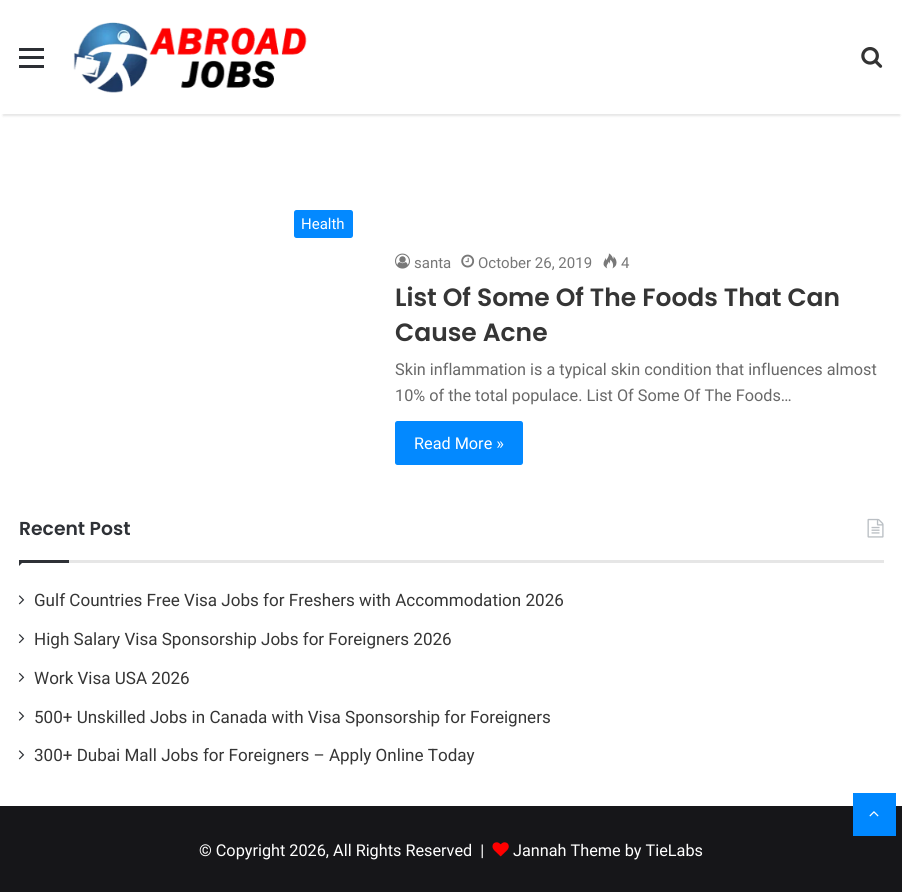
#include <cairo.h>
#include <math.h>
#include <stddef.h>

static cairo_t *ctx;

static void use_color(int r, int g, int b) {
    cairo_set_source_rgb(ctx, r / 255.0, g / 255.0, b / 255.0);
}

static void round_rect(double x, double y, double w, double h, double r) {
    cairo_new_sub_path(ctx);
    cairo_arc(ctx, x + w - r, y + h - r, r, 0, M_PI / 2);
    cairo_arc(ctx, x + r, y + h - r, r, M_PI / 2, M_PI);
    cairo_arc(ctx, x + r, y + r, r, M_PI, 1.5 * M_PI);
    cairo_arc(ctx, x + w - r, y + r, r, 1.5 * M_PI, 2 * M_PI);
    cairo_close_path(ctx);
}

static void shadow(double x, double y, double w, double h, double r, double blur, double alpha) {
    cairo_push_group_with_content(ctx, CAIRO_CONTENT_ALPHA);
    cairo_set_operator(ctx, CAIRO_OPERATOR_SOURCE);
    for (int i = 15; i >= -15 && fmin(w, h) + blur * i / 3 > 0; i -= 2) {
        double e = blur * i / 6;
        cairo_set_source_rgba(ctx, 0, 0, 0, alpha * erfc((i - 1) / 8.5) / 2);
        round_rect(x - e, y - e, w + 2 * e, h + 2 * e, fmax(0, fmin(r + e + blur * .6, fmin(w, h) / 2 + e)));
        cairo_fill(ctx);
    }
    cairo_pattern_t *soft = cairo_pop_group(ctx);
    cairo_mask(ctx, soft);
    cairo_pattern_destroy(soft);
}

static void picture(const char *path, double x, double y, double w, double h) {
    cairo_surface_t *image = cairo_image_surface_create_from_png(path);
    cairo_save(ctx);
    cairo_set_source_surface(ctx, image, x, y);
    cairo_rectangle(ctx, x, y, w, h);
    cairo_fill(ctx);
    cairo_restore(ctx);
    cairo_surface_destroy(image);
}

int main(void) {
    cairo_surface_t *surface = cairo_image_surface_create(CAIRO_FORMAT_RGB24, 902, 892);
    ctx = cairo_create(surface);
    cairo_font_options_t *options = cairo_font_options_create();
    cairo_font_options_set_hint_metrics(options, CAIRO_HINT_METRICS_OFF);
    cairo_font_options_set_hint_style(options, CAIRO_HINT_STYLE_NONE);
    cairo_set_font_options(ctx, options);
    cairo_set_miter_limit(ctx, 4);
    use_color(255, 255, 255);
    cairo_paint(ctx);
    cairo_save(ctx);
    cairo_set_fill_rule(ctx, CAIRO_FILL_RULE_EVEN_ODD);
    cairo_new_path(ctx);
    cairo_move_to(ctx, 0, 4);
    cairo_line_to(ctx, 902, 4);
    cairo_line_to(ctx, 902, 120);
    cairo_line_to(ctx, 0, 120);
    cairo_close_path(ctx);
    cairo_move_to(ctx, 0, 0);
    cairo_line_to(ctx, 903, 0);
    cairo_line_to(ctx, 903, 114);
    cairo_line_to(ctx, 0, 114);
    cairo_close_path(ctx);
    cairo_clip(ctx);
    use_color(0, 0, 0);
    shadow(3, 8, 897, 108, 0, 1, 0.1);
    cairo_restore(ctx);
    cairo_set_source_rgba(ctx, 1, 1, 1, 0.95);
    cairo_rectangle(ctx, 3, 113, 897, 1);
    cairo_fill(ctx);
    use_color(44, 47, 52);
    cairo_rectangle(ctx, 19, 56, 25, 3);
    cairo_fill(ctx);
    cairo_rectangle(ctx, 19, 48, 25, 3);
    cairo_fill(ctx);
    cairo_rectangle(ctx, 19, 65, 25, 3);
    cairo_fill(ctx);
    picture("img1.png", 73, 22, 234, 71);
    picture("img2.png", 861, 47, 22, 21);
    use_color(3, 137, 255);
    round_rect(294, 210, 59, 28, 2.5);
    cairo_fill(ctx);
    cairo_select_font_face(ctx, "Roboto", CAIRO_FONT_SLANT_NORMAL, CAIRO_FONT_WEIGHT_NORMAL);
    cairo_set_font_size(ctx, 15);
    use_color(255, 255, 255);
    cairo_move_to(ctx, 301, 229);
    cairo_show_text(ctx, "Health");
    picture("img3.png", 395, 253, 15, 16);
    use_color(119, 119, 119);
    cairo_move_to(ctx, 414, 268);
    cairo_show_text(ctx, "santa");
    picture("img4.png", 461, 254, 14, 14);
    cairo_move_to(ctx, 478, 268);
    cairo_show_text(ctx, "October 26, 2019");
    picture("img5.png", 603, 253, 14, 16);
    cairo_move_to(ctx, 621, 268);
    cairo_show_text(ctx, "4");
    cairo_select_font_face(ctx, "Poppins SemiBold", CAIRO_FONT_SLANT_NORMAL, CAIRO_FONT_WEIGHT_NORMAL);
    cairo_set_font_size(ctx, 25);
    use_color(53, 53, 53);
    cairo_move_to(ctx, 395, 306);
    cairo_show_text(ctx, "List Of Some Of The Foods That Can");
    cairo_move_to(ctx, 395, 341);
    cairo_show_text(ctx, "Cause Acne");
    cairo_select_font_face(ctx, "Roboto", CAIRO_FONT_SLANT_NORMAL, CAIRO_FONT_WEIGHT_NORMAL);
    cairo_set_font_size(ctx, 16.25);
    use_color(104, 104, 104);
    cairo_move_to(ctx, 395, 375);
    cairo_show_text(ctx, "Skin inflammation is a typical skin condition that influences almost");
    cairo_move_to(ctx, 395, 401);
    cairo_show_text(ctx, "10% of the total populace. List Of Some Of The Foods…");
    use_color(3, 137, 255);
    round_rect(395, 421, 128, 44, 2.5);
    cairo_fill(ctx);
    use_color(255, 255, 255);
    cairo_move_to(ctx, 414, 449);
    cairo_show_text(ctx, "Read More »");
    use_color(230, 230, 230);
    cairo_rectangle(ctx, 69, 560, 815, 3);
    cairo_fill(ctx);
    cairo_select_font_face(ctx, "Poppins SemiBold", CAIRO_FONT_SLANT_NORMAL, CAIRO_FONT_WEIGHT_NORMAL);
    cairo_set_font_size(ctx, 18.75);
    use_color(46, 49, 54);
    cairo_move_to(ctx, 19, 535);
    cairo_show_text(ctx, "Recent Post");
    picture("img6.png", 867, 518, 17, 20);
    cairo_new_path(ctx);
    cairo_move_to(ctx, 19, 560);
    cairo_line_to(ctx, 25, 560);
    cairo_line_to(ctx, 19, 566);
    cairo_close_path(ctx);
    cairo_fill(ctx);
    cairo_rectangle(ctx, 19, 560, 50, 3);
    cairo_fill(ctx);
    picture("img7.png", 18, 595, 7, 10);
    cairo_select_font_face(ctx, "Roboto", CAIRO_FONT_SLANT_NORMAL, CAIRO_FONT_WEIGHT_NORMAL);
    cairo_set_font_size(ctx, 17.05);
    use_color(53, 53, 53);
    cairo_move_to(ctx, 34, 606);
    cairo_show_text(ctx, "Gulf Countries Free Visa Jobs for Freshers with Accommodation 2026");
    picture("img8.png", 18, 634, 7, 10);
    cairo_move_to(ctx, 34, 645);
    cairo_show_text(ctx, "High Salary Visa Sponsorship Jobs for Foreigners 2026");
    picture("img9.png", 18, 672, 7, 10);
    cairo_move_to(ctx, 34, 684);
    cairo_show_text(ctx, "Work Visa USA 2026");
    picture("img10.png", 18, 711, 7, 10);
    cairo_move_to(ctx, 34, 723);
    cairo_show_text(ctx, "500+ Unskilled Jobs in Canada with Visa Sponsorship for Foreigners");
    picture("img7.png", 18, 750, 7, 10);
    cairo_move_to(ctx, 34, 761);
    cairo_show_text(ctx, "300+ Dubai Mall Jobs for Foreigners – Apply Online Today");
    use_color(22, 22, 25);
    cairo_rectangle(ctx, 0, 806, 902, 86);
    cairo_fill(ctx);
    use_color(0, 136, 255);
    cairo_rectangle(ctx, 853, 793, 43, 43);
    cairo_fill(ctx);
    picture("img11.png", 869, 811, 10, 6);
    cairo_set_font_size(ctx, 16.25);
    use_color(255, 255, 255);
    cairo_move_to(ctx, 199, 856);
    cairo_show_text(ctx, "© Copyright 2026, All Rights Reserved  |");
    picture("img12.png", 492, 842, 17, 15);
    cairo_move_to(ctx, 513, 856);
    cairo_show_text(ctx, "Jannah Theme by TieLabs");
    cairo_surface_write_to_png(surface, "result.png");
    cairo_font_options_destroy(options);
    cairo_destroy(ctx);
    cairo_surface_destroy(surface);
    return 0;
}
